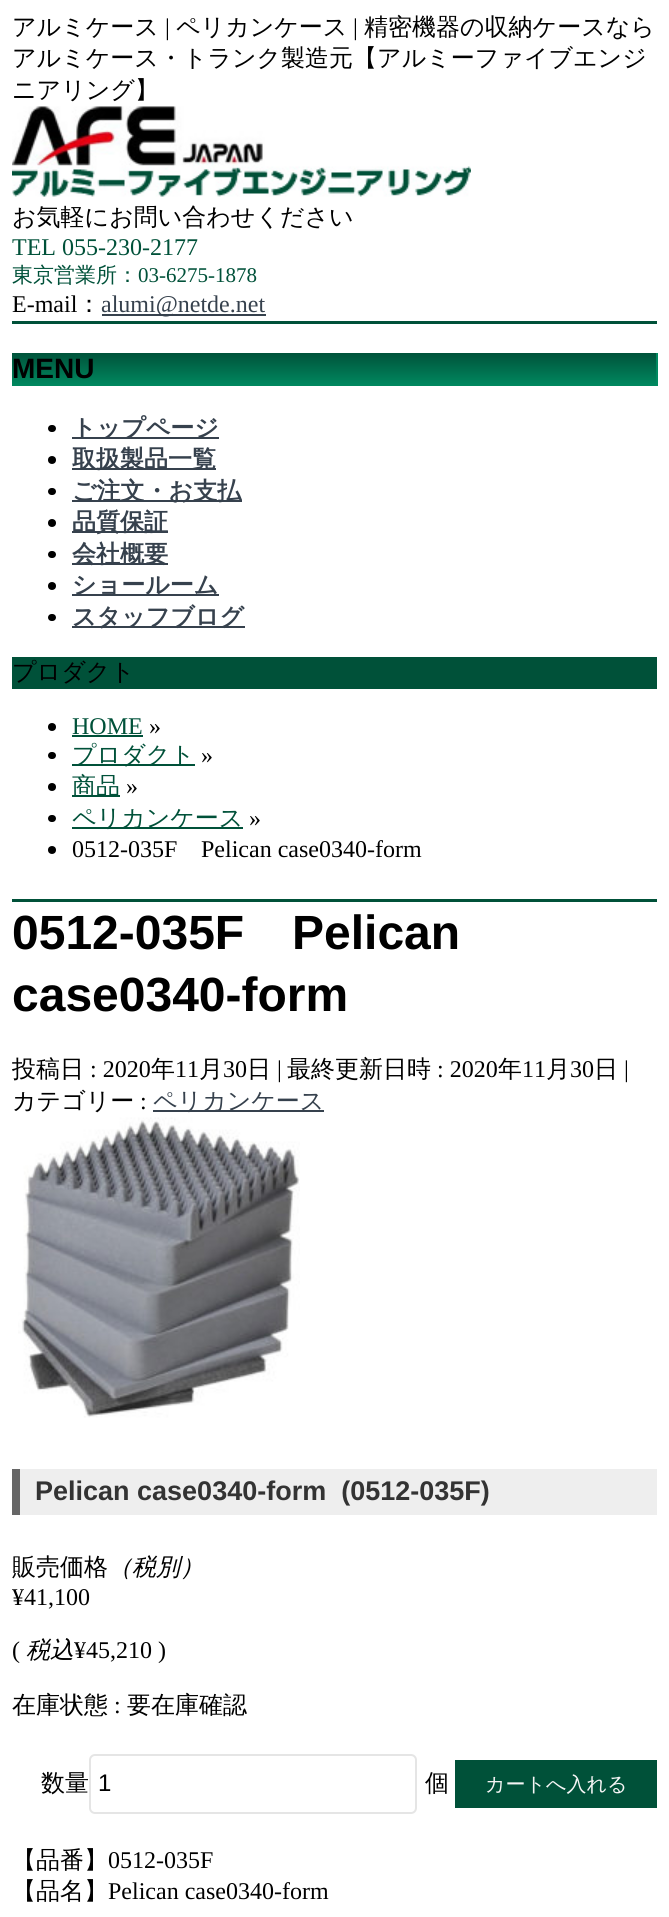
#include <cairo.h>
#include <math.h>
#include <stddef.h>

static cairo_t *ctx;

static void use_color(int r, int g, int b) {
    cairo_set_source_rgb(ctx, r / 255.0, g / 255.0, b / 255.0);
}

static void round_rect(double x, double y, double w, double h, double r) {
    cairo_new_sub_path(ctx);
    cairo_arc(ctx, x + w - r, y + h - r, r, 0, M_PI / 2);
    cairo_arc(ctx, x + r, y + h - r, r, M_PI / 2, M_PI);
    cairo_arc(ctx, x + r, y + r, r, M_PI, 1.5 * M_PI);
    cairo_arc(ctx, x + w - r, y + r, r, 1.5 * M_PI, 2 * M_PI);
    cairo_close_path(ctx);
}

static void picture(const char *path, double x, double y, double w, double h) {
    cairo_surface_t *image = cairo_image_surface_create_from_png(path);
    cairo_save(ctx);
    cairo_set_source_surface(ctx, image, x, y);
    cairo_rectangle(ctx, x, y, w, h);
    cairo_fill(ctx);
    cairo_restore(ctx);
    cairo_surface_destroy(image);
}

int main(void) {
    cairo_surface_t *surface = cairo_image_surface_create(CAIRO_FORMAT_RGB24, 669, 1917);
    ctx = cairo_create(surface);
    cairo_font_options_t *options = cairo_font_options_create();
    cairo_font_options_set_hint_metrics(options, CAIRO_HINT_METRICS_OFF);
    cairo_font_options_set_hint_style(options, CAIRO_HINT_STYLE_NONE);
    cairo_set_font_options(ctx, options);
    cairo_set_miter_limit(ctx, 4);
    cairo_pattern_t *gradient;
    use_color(255, 255, 255);
    cairo_paint(ctx);
    cairo_select_font_face(ctx, "WenQuanYi Zen Hei Medium", CAIRO_FONT_SLANT_NORMAL, CAIRO_FONT_WEIGHT_NORMAL);
    cairo_set_font_size(ctx, 24);
    use_color(0, 0, 0);
    cairo_move_to(ctx, 12, 35);
    cairo_show_text(ctx, "アルミケース");
    cairo_select_font_face(ctx, "Liberation Serif", CAIRO_FONT_SLANT_NORMAL, CAIRO_FONT_WEIGHT_NORMAL);
    cairo_move_to(ctx, 165, 35);
    cairo_show_text(ctx, "|");
    cairo_select_font_face(ctx, "WenQuanYi Zen Hei Medium", CAIRO_FONT_SLANT_NORMAL, CAIRO_FONT_WEIGHT_NORMAL);
    cairo_move_to(ctx, 176, 35);
    cairo_show_text(ctx, "ペリカンケース");
    cairo_select_font_face(ctx, "Liberation Serif", CAIRO_FONT_SLANT_NORMAL, CAIRO_FONT_WEIGHT_NORMAL);
    cairo_move_to(ctx, 353, 35);
    cairo_show_text(ctx, "|");
    cairo_select_font_face(ctx, "WenQuanYi Zen Hei Medium", CAIRO_FONT_SLANT_NORMAL, CAIRO_FONT_WEIGHT_NORMAL);
    cairo_move_to(ctx, 364, 35);
    cairo_show_text(ctx, "精密機器の収納ケースなら");
    cairo_move_to(ctx, 12, 66);
    cairo_show_text(ctx, "アルミケース・トランク製造元【アルミーファイブエンジ");
    cairo_move_to(ctx, 12, 98);
    cairo_show_text(ctx, "ニアリング】");
    picture("img1.png", 12, 106, 459, 91);
    cairo_move_to(ctx, 12, 225);
    cairo_show_text(ctx, "お気軽にお問い合わせください");
    cairo_select_font_face(ctx, "Liberation Serif", CAIRO_FONT_SLANT_NORMAL, CAIRO_FONT_WEIGHT_NORMAL);
    use_color(0, 81, 57);
    cairo_move_to(ctx, 12, 255);
    cairo_show_text(ctx, "TEL 055-230-2177");
    cairo_select_font_face(ctx, "WenQuanYi Zen Hei Medium", CAIRO_FONT_SLANT_NORMAL, CAIRO_FONT_WEIGHT_NORMAL);
    cairo_set_font_size(ctx, 21);
    cairo_move_to(ctx, 12, 282);
    cairo_show_text(ctx, "東京営業所：");
    cairo_select_font_face(ctx, "Liberation Serif", CAIRO_FONT_SLANT_NORMAL, CAIRO_FONT_WEIGHT_NORMAL);
    cairo_move_to(ctx, 138, 282);
    cairo_show_text(ctx, "03-6275-1878");
    cairo_set_font_size(ctx, 24);
    use_color(0, 0, 0);
    cairo_move_to(ctx, 12, 312);
    cairo_show_text(ctx, "E-mail");
    cairo_select_font_face(ctx, "WenQuanYi Zen Hei Medium", CAIRO_FONT_SLANT_NORMAL, CAIRO_FONT_WEIGHT_NORMAL);
    cairo_move_to(ctx, 77, 312);
    cairo_show_text(ctx, "：");
    use_color(54, 65, 77);
    cairo_rectangle(ctx, 102, 314, 164, 2);
    cairo_fill(ctx);
    cairo_select_font_face(ctx, "Liberation Serif", CAIRO_FONT_SLANT_NORMAL, CAIRO_FONT_WEIGHT_NORMAL);
    cairo_move_to(ctx, 101, 312);
    cairo_show_text(ctx, "alumi@netde.net");
    use_color(0, 81, 57);
    cairo_rectangle(ctx, 12, 321, 645, 3);
    cairo_fill(ctx);
    gradient = cairo_pattern_create_linear(334, 352, 334, 386);
    cairo_pattern_add_color_stop_rgba(gradient, 0, 0, 0.318, 0.224, 1);
    cairo_pattern_add_color_stop_rgba(gradient, 1, 0, 0.537, 0.376, 1);
    cairo_set_source(ctx, gradient);
    cairo_pattern_destroy(gradient);
    cairo_rectangle(ctx, 12, 353, 644, 33);
    cairo_fill(ctx);
    use_color(0, 137, 96);
    cairo_rectangle(ctx, 656, 353, 2, 33);
    cairo_fill(ctx);
    cairo_select_font_face(ctx, "Liberation Sans", CAIRO_FONT_SLANT_NORMAL, CAIRO_FONT_WEIGHT_BOLD);
    cairo_set_font_size(ctx, 28);
    use_color(0, 0, 0);
    cairo_move_to(ctx, 12, 378);
    cairo_show_text(ctx, "MENU");
    round_rect(48, 425, 8, 7, 3.5);
    cairo_fill(ctx);
    use_color(54, 65, 77);
    cairo_rectangle(ctx, 72, 437, 147, 2);
    cairo_fill(ctx);
    cairo_select_font_face(ctx, "WenQuanYi Zen Hei", CAIRO_FONT_SLANT_NORMAL, CAIRO_FONT_WEIGHT_BOLD);
    cairo_set_font_size(ctx, 24);
    cairo_move_to(ctx, 72, 436);
    cairo_show_text(ctx, "トップページ");
    use_color(0, 0, 0);
    cairo_new_path(ctx);
    cairo_arc(ctx, 52, 460, 4, 0, 2 * M_PI);
    cairo_fill(ctx);
    use_color(54, 65, 77);
    cairo_rectangle(ctx, 72, 468, 144, 2);
    cairo_fill(ctx);
    cairo_move_to(ctx, 72, 467);
    cairo_show_text(ctx, "取扱製品一覧");
    use_color(0, 0, 0);
    round_rect(48, 488, 8, 7, 3.5);
    cairo_fill(ctx);
    use_color(54, 65, 77);
    cairo_rectangle(ctx, 72, 500, 170, 2);
    cairo_fill(ctx);
    cairo_move_to(ctx, 72, 499);
    cairo_show_text(ctx, "ご注文・お支払");
    use_color(0, 0, 0);
    cairo_new_path(ctx);
    cairo_arc(ctx, 52, 523, 4, 0, 2 * M_PI);
    cairo_fill(ctx);
    use_color(54, 65, 77);
    cairo_rectangle(ctx, 72, 531, 96, 2);
    cairo_fill(ctx);
    cairo_move_to(ctx, 72, 530);
    cairo_show_text(ctx, "品質保証");
    use_color(0, 0, 0);
    round_rect(48, 551, 8, 7, 3.5);
    cairo_fill(ctx);
    use_color(54, 65, 77);
    cairo_rectangle(ctx, 72, 563, 96, 2);
    cairo_fill(ctx);
    cairo_move_to(ctx, 72, 562);
    cairo_show_text(ctx, "会社概要");
    use_color(0, 0, 0);
    cairo_new_path(ctx);
    cairo_arc(ctx, 52, 586, 4, 0, 2 * M_PI);
    cairo_fill(ctx);
    use_color(54, 65, 77);
    cairo_rectangle(ctx, 72, 594, 147, 2);
    cairo_fill(ctx);
    cairo_move_to(ctx, 72, 593);
    cairo_show_text(ctx, "ショールーム");
    use_color(0, 0, 0);
    round_rect(48, 614, 8, 7, 3.5);
    cairo_fill(ctx);
    use_color(54, 65, 77);
    cairo_rectangle(ctx, 72, 626, 173, 2);
    cairo_fill(ctx);
    cairo_move_to(ctx, 72, 625);
    cairo_show_text(ctx, "スタッフブログ");
    use_color(0, 81, 57);
    cairo_rectangle(ctx, 12, 657, 645, 32);
    cairo_fill(ctx);
    cairo_select_font_face(ctx, "WenQuanYi Zen Hei Medium", CAIRO_FONT_SLANT_NORMAL, CAIRO_FONT_WEIGHT_NORMAL);
    use_color(0, 0, 0);
    cairo_move_to(ctx, 12, 680);
    cairo_show_text(ctx, "プロダクト");
    cairo_new_path(ctx);
    cairo_arc(ctx, 52, 727, 4, 0, 2 * M_PI);
    cairo_fill(ctx);
    cairo_select_font_face(ctx, "Liberation Serif", CAIRO_FONT_SLANT_NORMAL, CAIRO_FONT_WEIGHT_NORMAL);
    use_color(0, 81, 57);
    cairo_move_to(ctx, 72, 734);
    cairo_show_text(ctx, "HOME");
    cairo_rectangle(ctx, 72, 735, 71, 2);
    cairo_fill(ctx);
    use_color(0, 0, 0);
    cairo_move_to(ctx, 149, 734);
    cairo_show_text(ctx, "»");
    round_rect(48, 752, 8, 7, 3.5);
    cairo_fill(ctx);
    use_color(0, 81, 57);
    cairo_rectangle(ctx, 72, 764, 123, 2);
    cairo_fill(ctx);
    cairo_select_font_face(ctx, "WenQuanYi Zen Hei Medium", CAIRO_FONT_SLANT_NORMAL, CAIRO_FONT_WEIGHT_NORMAL);
    cairo_move_to(ctx, 72, 763);
    cairo_show_text(ctx, "プロダクト");
    cairo_select_font_face(ctx, "Liberation Serif", CAIRO_FONT_SLANT_NORMAL, CAIRO_FONT_WEIGHT_NORMAL);
    use_color(0, 0, 0);
    cairo_move_to(ctx, 201, 763);
    cairo_show_text(ctx, "»");
    cairo_new_path(ctx);
    cairo_arc(ctx, 52, 787, 4, 0, 2 * M_PI);
    cairo_fill(ctx);
    use_color(0, 81, 57);
    cairo_rectangle(ctx, 72, 795, 48, 2);
    cairo_fill(ctx);
    cairo_select_font_face(ctx, "WenQuanYi Zen Hei Medium", CAIRO_FONT_SLANT_NORMAL, CAIRO_FONT_WEIGHT_NORMAL);
    cairo_move_to(ctx, 72, 794);
    cairo_show_text(ctx, "商品");
    cairo_select_font_face(ctx, "Liberation Serif", CAIRO_FONT_SLANT_NORMAL, CAIRO_FONT_WEIGHT_NORMAL);
    use_color(0, 0, 0);
    cairo_move_to(ctx, 126, 794);
    cairo_show_text(ctx, "»");
    round_rect(48, 815, 8, 7, 3.5);
    cairo_fill(ctx);
    use_color(0, 81, 57);
    cairo_rectangle(ctx, 72, 827, 171, 2);
    cairo_fill(ctx);
    cairo_select_font_face(ctx, "WenQuanYi Zen Hei Medium", CAIRO_FONT_SLANT_NORMAL, CAIRO_FONT_WEIGHT_NORMAL);
    cairo_move_to(ctx, 72, 826);
    cairo_show_text(ctx, "ペリカンケース");
    cairo_select_font_face(ctx, "Liberation Serif", CAIRO_FONT_SLANT_NORMAL, CAIRO_FONT_WEIGHT_NORMAL);
    use_color(0, 0, 0);
    cairo_move_to(ctx, 249, 826);
    cairo_show_text(ctx, "»");
    cairo_new_path(ctx);
    cairo_arc(ctx, 52, 850, 4, 0, 2 * M_PI);
    cairo_fill(ctx);
    cairo_move_to(ctx, 72, 857);
    cairo_show_text(ctx, "0512-035F");
    cairo_move_to(ctx, 201, 857);
    cairo_show_text(ctx, "Pelican case0340-form");
    use_color(0, 81, 57);
    cairo_rectangle(ctx, 12, 899, 645, 3);
    cairo_fill(ctx);
    cairo_select_font_face(ctx, "Liberation Sans", CAIRO_FONT_SLANT_NORMAL, CAIRO_FONT_WEIGHT_BOLD);
    cairo_set_font_size(ctx, 48);
    use_color(0, 0, 0);
    cairo_move_to(ctx, 12, 949);
    cairo_show_text(ctx, "0512-035F");
    cairo_move_to(ctx, 292, 949);
    cairo_show_text(ctx, "Pelican");
    cairo_move_to(ctx, 12, 1011);
    cairo_show_text(ctx, "case0340-form");
    cairo_select_font_face(ctx, "WenQuanYi Zen Hei Medium", CAIRO_FONT_SLANT_NORMAL, CAIRO_FONT_WEIGHT_NORMAL);
    cairo_set_font_size(ctx, 24);
    cairo_move_to(ctx, 12, 1077);
    cairo_show_text(ctx, "投稿日");
    cairo_select_font_face(ctx, "Liberation Serif", CAIRO_FONT_SLANT_NORMAL, CAIRO_FONT_WEIGHT_NORMAL);
    cairo_move_to(ctx, 90, 1077);
    cairo_show_text(ctx, ": 2020");
    cairo_select_font_face(ctx, "WenQuanYi Zen Hei Medium", CAIRO_FONT_SLANT_NORMAL, CAIRO_FONT_WEIGHT_NORMAL);
    cairo_move_to(ctx, 151, 1077);
    cairo_show_text(ctx, "年");
    cairo_select_font_face(ctx, "Liberation Serif", CAIRO_FONT_SLANT_NORMAL, CAIRO_FONT_WEIGHT_NORMAL);
    cairo_move_to(ctx, 175, 1077);
    cairo_show_text(ctx, "11");
    cairo_select_font_face(ctx, "WenQuanYi Zen Hei Medium", CAIRO_FONT_SLANT_NORMAL, CAIRO_FONT_WEIGHT_NORMAL);
    cairo_move_to(ctx, 199, 1077);
    cairo_show_text(ctx, "月");
    cairo_select_font_face(ctx, "Liberation Serif", CAIRO_FONT_SLANT_NORMAL, CAIRO_FONT_WEIGHT_NORMAL);
    cairo_move_to(ctx, 223, 1077);
    cairo_show_text(ctx, "30");
    cairo_select_font_face(ctx, "WenQuanYi Zen Hei Medium", CAIRO_FONT_SLANT_NORMAL, CAIRO_FONT_WEIGHT_NORMAL);
    cairo_move_to(ctx, 247, 1077);
    cairo_show_text(ctx, "日");
    cairo_select_font_face(ctx, "Liberation Serif", CAIRO_FONT_SLANT_NORMAL, CAIRO_FONT_WEIGHT_NORMAL);
    cairo_move_to(ctx, 277, 1077);
    cairo_show_text(ctx, "|");
    cairo_select_font_face(ctx, "WenQuanYi Zen Hei Medium", CAIRO_FONT_SLANT_NORMAL, CAIRO_FONT_WEIGHT_NORMAL);
    cairo_move_to(ctx, 287, 1077);
    cairo_show_text(ctx, "最終更新日時");
    cairo_select_font_face(ctx, "Liberation Serif", CAIRO_FONT_SLANT_NORMAL, CAIRO_FONT_WEIGHT_NORMAL);
    cairo_move_to(ctx, 437, 1077);
    cairo_show_text(ctx, ": 2020");
    cairo_select_font_face(ctx, "WenQuanYi Zen Hei Medium", CAIRO_FONT_SLANT_NORMAL, CAIRO_FONT_WEIGHT_NORMAL);
    cairo_move_to(ctx, 498, 1077);
    cairo_show_text(ctx, "年");
    cairo_select_font_face(ctx, "Liberation Serif", CAIRO_FONT_SLANT_NORMAL, CAIRO_FONT_WEIGHT_NORMAL);
    cairo_move_to(ctx, 522, 1077);
    cairo_show_text(ctx, "11");
    cairo_select_font_face(ctx, "WenQuanYi Zen Hei Medium", CAIRO_FONT_SLANT_NORMAL, CAIRO_FONT_WEIGHT_NORMAL);
    cairo_move_to(ctx, 546, 1077);
    cairo_show_text(ctx, "月");
    cairo_select_font_face(ctx, "Liberation Serif", CAIRO_FONT_SLANT_NORMAL, CAIRO_FONT_WEIGHT_NORMAL);
    cairo_move_to(ctx, 570, 1077);
    cairo_show_text(ctx, "30");
    cairo_select_font_face(ctx, "WenQuanYi Zen Hei Medium", CAIRO_FONT_SLANT_NORMAL, CAIRO_FONT_WEIGHT_NORMAL);
    cairo_move_to(ctx, 594, 1077);
    cairo_show_text(ctx, "日");
    cairo_select_font_face(ctx, "Liberation Serif", CAIRO_FONT_SLANT_NORMAL, CAIRO_FONT_WEIGHT_NORMAL);
    cairo_move_to(ctx, 624, 1077);
    cairo_show_text(ctx, "|");
    cairo_select_font_face(ctx, "WenQuanYi Zen Hei Medium", CAIRO_FONT_SLANT_NORMAL, CAIRO_FONT_WEIGHT_NORMAL);
    cairo_move_to(ctx, 12, 1109);
    cairo_show_text(ctx, "カテゴリー");
    cairo_select_font_face(ctx, "Liberation Serif", CAIRO_FONT_SLANT_NORMAL, CAIRO_FONT_WEIGHT_NORMAL);
    cairo_move_to(ctx, 140, 1109);
    cairo_show_text(ctx, ":");
    use_color(54, 65, 77);
    cairo_rectangle(ctx, 153, 1110, 171, 2);
    cairo_fill(ctx);
    cairo_select_font_face(ctx, "WenQuanYi Zen Hei Medium", CAIRO_FONT_SLANT_NORMAL, CAIRO_FONT_WEIGHT_NORMAL);
    cairo_move_to(ctx, 153, 1109);
    cairo_show_text(ctx, "ペリカンケース");
    picture("img2.png", 18, 1117, 282, 301);
    use_color(238, 238, 238);
    cairo_rectangle(ctx, 20, 1469, 637, 46);
    cairo_fill(ctx);
    use_color(102, 102, 102);
    cairo_rectangle(ctx, 12, 1469, 8, 46);
    cairo_fill(ctx);
    cairo_select_font_face(ctx, "Liberation Sans", CAIRO_FONT_SLANT_NORMAL, CAIRO_FONT_WEIGHT_BOLD);
    cairo_set_font_size(ctx, 27);
    use_color(51, 51, 51);
    cairo_move_to(ctx, 35, 1500);
    cairo_show_text(ctx, "Pelican case0340-form  (0512-035F)");
    cairo_select_font_face(ctx, "WenQuanYi Zen Hei Medium", CAIRO_FONT_SLANT_NORMAL, CAIRO_FONT_WEIGHT_NORMAL);
    cairo_set_font_size(ctx, 24);
    use_color(0, 0, 0);
    cairo_move_to(ctx, 12, 1575);
    cairo_show_text(ctx, "販売価格");
    cairo_select_font_face(ctx, "WenQuanYi Zen Hei Medium", CAIRO_FONT_SLANT_ITALIC, CAIRO_FONT_WEIGHT_NORMAL);
    cairo_move_to(ctx, 108, 1575);
    cairo_show_text(ctx, "（税別）");
    cairo_select_font_face(ctx, "Liberation Serif", CAIRO_FONT_SLANT_NORMAL, CAIRO_FONT_WEIGHT_NORMAL);
    cairo_move_to(ctx, 12, 1605);
    cairo_show_text(ctx, "¥41,100");
    cairo_move_to(ctx, 12, 1658);
    cairo_show_text(ctx, "(");
    cairo_select_font_face(ctx, "WenQuanYi Zen Hei Medium", CAIRO_FONT_SLANT_ITALIC, CAIRO_FONT_WEIGHT_NORMAL);
    cairo_move_to(ctx, 26, 1658);
    cairo_show_text(ctx, "税込");
    cairo_select_font_face(ctx, "Liberation Serif", CAIRO_FONT_SLANT_NORMAL, CAIRO_FONT_WEIGHT_NORMAL);
    cairo_move_to(ctx, 74, 1658);
    cairo_show_text(ctx, "¥45,210 )");
    cairo_select_font_face(ctx, "WenQuanYi Zen Hei Medium", CAIRO_FONT_SLANT_NORMAL, CAIRO_FONT_WEIGHT_NORMAL);
    cairo_move_to(ctx, 12, 1713);
    cairo_show_text(ctx, "在庫状態");
    cairo_select_font_face(ctx, "Liberation Serif", CAIRO_FONT_SLANT_NORMAL, CAIRO_FONT_WEIGHT_NORMAL);
    cairo_move_to(ctx, 114, 1713);
    cairo_show_text(ctx, ":");
    cairo_select_font_face(ctx, "WenQuanYi Zen Hei Medium", CAIRO_FONT_SLANT_NORMAL, CAIRO_FONT_WEIGHT_NORMAL);
    cairo_move_to(ctx, 127, 1713);
    cairo_show_text(ctx, "要在庫確認");
    cairo_move_to(ctx, 41, 1791);
    cairo_show_text(ctx, "数量");
    round_rect(90, 1755, 326, 58, 5);
    use_color(229, 229, 229);
    cairo_stroke(ctx);
    cairo_select_font_face(ctx, "Liberation Sans", CAIRO_FONT_SLANT_NORMAL, CAIRO_FONT_WEIGHT_NORMAL);
    use_color(0, 0, 0);
    cairo_move_to(ctx, 98, 1791);
    cairo_show_text(ctx, "1");
    cairo_select_font_face(ctx, "WenQuanYi Zen Hei Medium", CAIRO_FONT_SLANT_NORMAL, CAIRO_FONT_WEIGHT_NORMAL);
    cairo_move_to(ctx, 425, 1791);
    cairo_show_text(ctx, "個");
    use_color(0, 81, 57);
    cairo_rectangle(ctx, 455, 1760, 202, 48);
    cairo_fill(ctx);
    cairo_set_font_size(ctx, 20);
    use_color(245, 245, 245);
    cairo_move_to(ctx, 485, 1791);
    cairo_show_text(ctx, "カートへ入れる");
    cairo_set_font_size(ctx, 24);
    use_color(0, 0, 0);
    cairo_move_to(ctx, 12, 1868);
    cairo_show_text(ctx, "【品番】");
    cairo_select_font_face(ctx, "Liberation Serif", CAIRO_FONT_SLANT_NORMAL, CAIRO_FONT_WEIGHT_NORMAL);
    cairo_move_to(ctx, 108, 1868);
    cairo_show_text(ctx, "0512-035F");
    cairo_select_font_face(ctx, "WenQuanYi Zen Hei Medium", CAIRO_FONT_SLANT_NORMAL, CAIRO_FONT_WEIGHT_NORMAL);
    cairo_move_to(ctx, 12, 1899);
    cairo_show_text(ctx, "【品名】");
    cairo_select_font_face(ctx, "Liberation Serif", CAIRO_FONT_SLANT_NORMAL, CAIRO_FONT_WEIGHT_NORMAL);
    cairo_move_to(ctx, 108, 1899);
    cairo_show_text(ctx, "Pelican case0340-form");
    cairo_surface_write_to_png(surface, "result.png");
    cairo_font_options_destroy(options);
    cairo_destroy(ctx);
    cairo_surface_destroy(surface);
    return 0;
}
